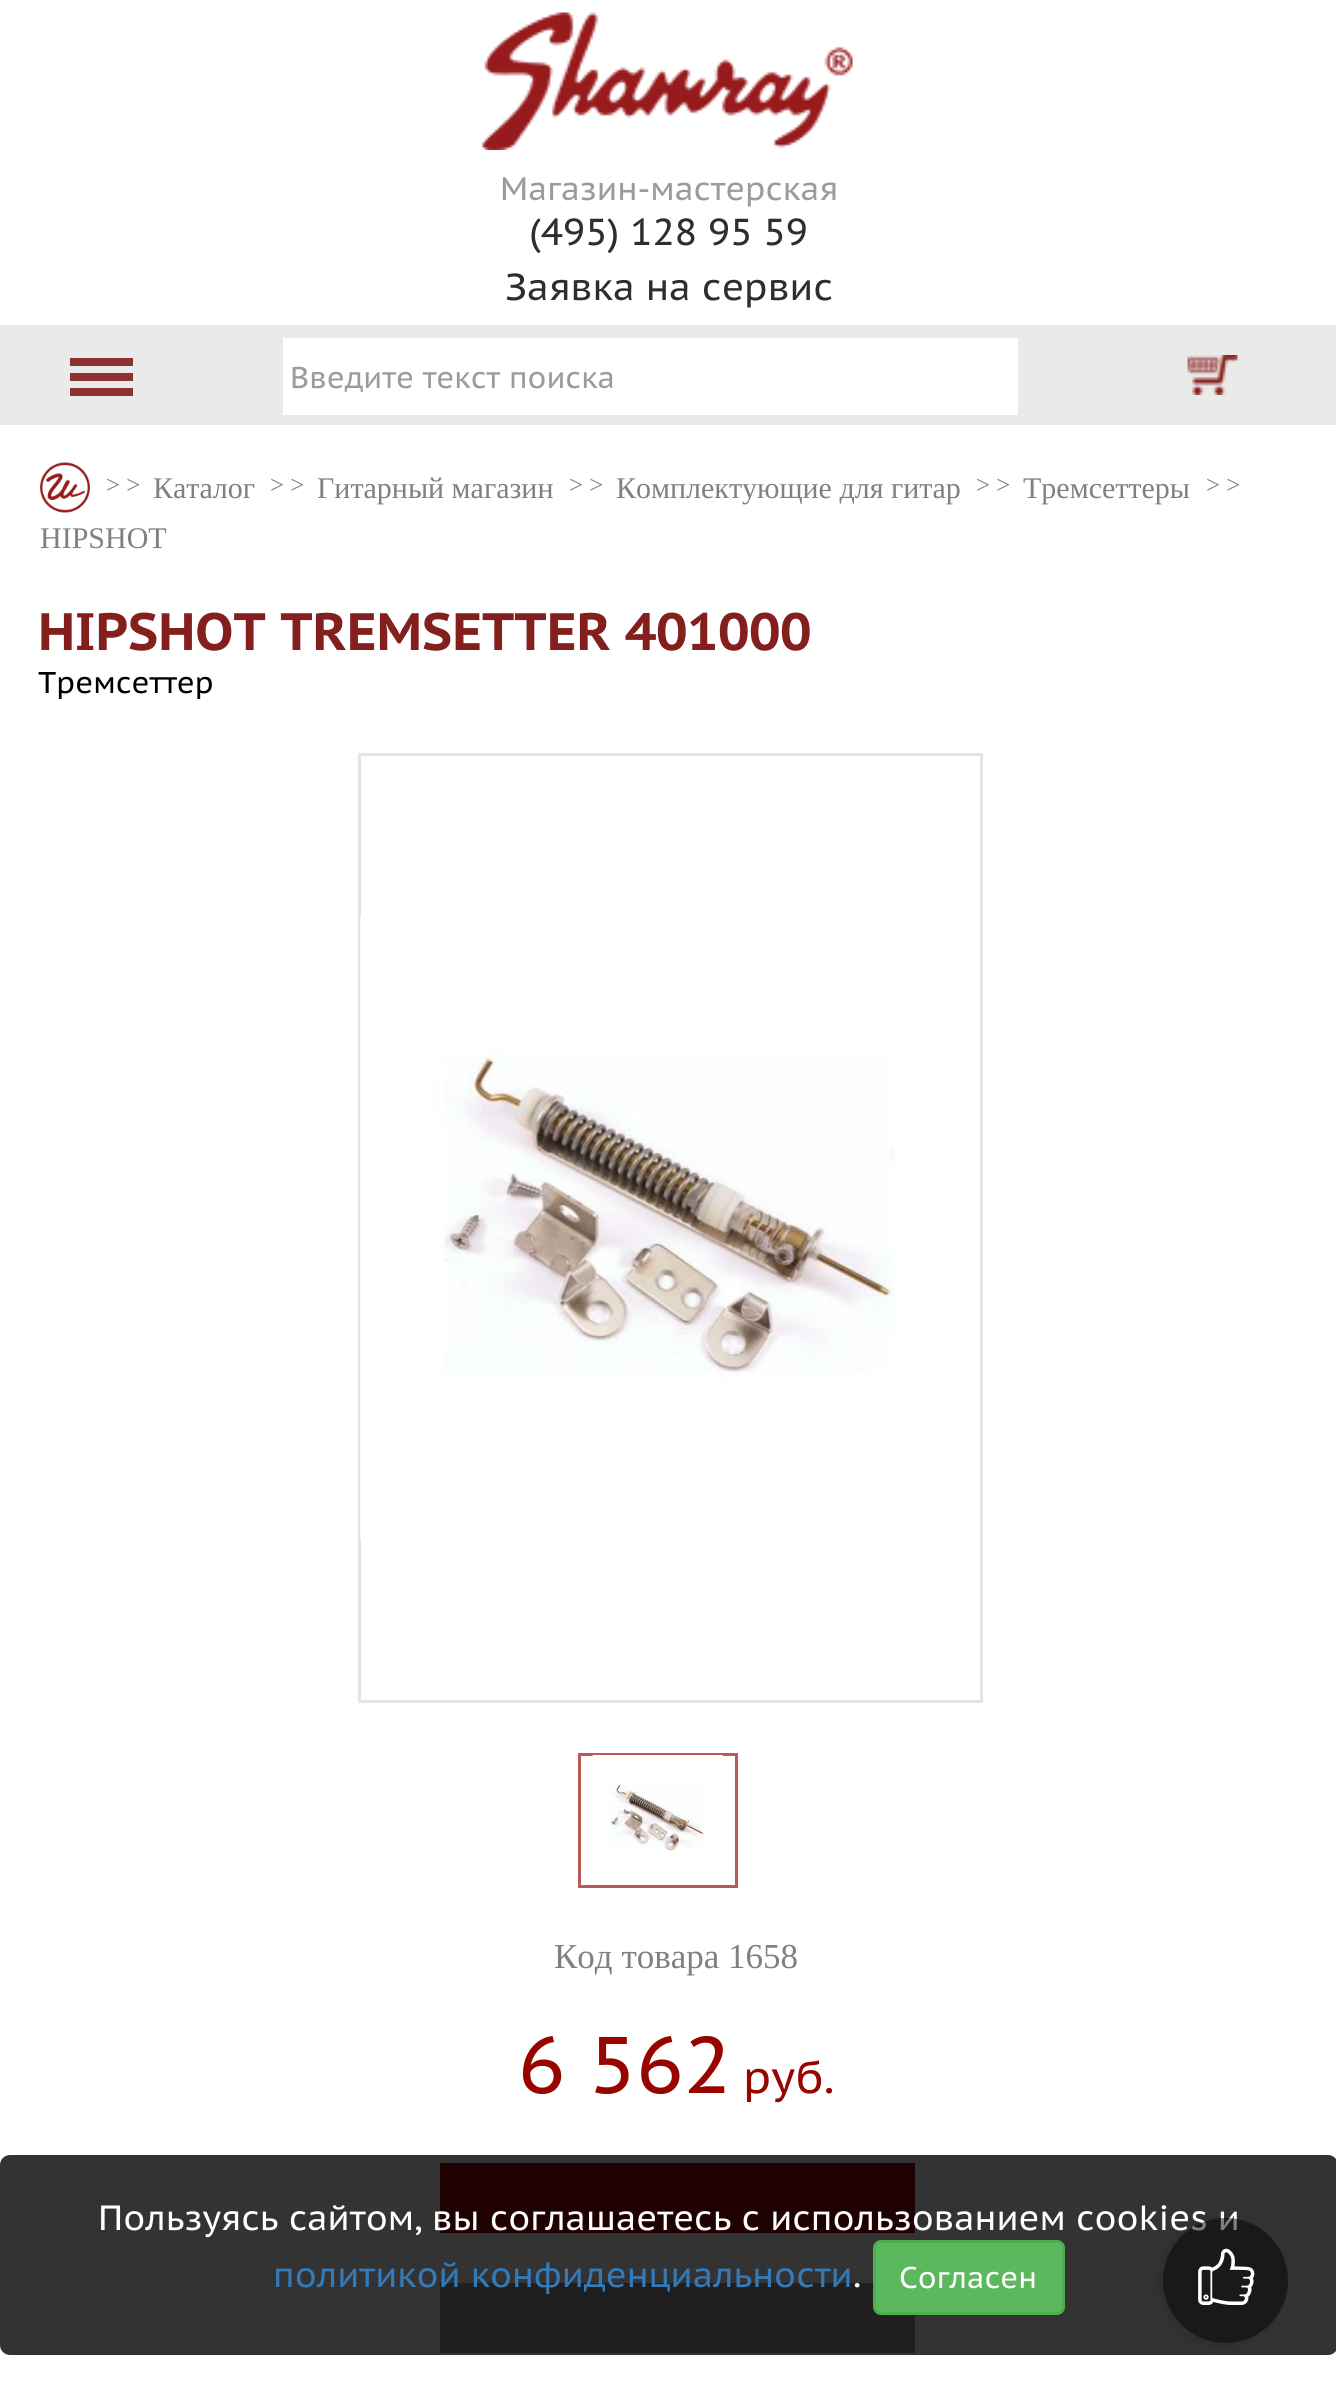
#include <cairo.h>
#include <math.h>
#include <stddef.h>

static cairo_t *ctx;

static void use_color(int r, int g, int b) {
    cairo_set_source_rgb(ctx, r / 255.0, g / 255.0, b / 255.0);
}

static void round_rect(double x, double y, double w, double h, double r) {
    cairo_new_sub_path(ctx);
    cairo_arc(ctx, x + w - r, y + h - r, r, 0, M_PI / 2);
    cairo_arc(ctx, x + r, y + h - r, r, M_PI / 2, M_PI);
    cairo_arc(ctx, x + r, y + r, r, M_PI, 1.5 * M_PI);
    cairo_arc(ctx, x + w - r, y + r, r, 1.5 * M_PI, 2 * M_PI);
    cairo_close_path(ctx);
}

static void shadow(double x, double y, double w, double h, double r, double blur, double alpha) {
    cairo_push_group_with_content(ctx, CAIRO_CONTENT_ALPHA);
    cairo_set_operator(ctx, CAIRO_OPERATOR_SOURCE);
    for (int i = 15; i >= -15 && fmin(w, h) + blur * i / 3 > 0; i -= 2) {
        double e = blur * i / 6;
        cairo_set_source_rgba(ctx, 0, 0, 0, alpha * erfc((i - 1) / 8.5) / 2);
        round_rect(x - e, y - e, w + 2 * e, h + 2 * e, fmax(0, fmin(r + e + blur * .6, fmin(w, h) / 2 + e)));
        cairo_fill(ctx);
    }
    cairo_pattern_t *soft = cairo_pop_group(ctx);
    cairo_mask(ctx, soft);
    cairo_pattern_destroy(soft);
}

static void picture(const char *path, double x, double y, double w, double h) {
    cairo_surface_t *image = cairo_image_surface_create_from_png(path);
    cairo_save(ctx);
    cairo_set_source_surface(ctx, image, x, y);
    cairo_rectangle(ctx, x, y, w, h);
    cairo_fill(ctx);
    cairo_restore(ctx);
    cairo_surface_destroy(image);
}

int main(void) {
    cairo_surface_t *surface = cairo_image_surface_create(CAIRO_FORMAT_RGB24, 1336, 2403);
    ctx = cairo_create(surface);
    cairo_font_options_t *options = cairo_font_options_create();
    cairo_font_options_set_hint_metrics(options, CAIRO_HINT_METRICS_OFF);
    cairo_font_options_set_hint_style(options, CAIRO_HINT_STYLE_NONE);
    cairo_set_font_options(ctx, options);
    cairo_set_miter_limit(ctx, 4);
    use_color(255, 255, 255);
    cairo_paint(ctx);
    picture("img1.png", 481, 12, 372, 138);
    cairo_select_font_face(ctx, "PT Sans Caption", CAIRO_FONT_SLANT_NORMAL, CAIRO_FONT_WEIGHT_NORMAL);
    cairo_set_font_size(ctx, 32.5);
    use_color(154, 155, 156);
    cairo_move_to(ctx, 500, 200);
    cairo_show_text(ctx, "Магазин-мастерская");
    cairo_set_font_size(ctx, 37.5);
    use_color(46, 46, 46);
    cairo_move_to(ctx, 529, 245);
    cairo_show_text(ctx, "(495) 128 95 59");
    cairo_move_to(ctx, 505, 300);
    cairo_show_text(ctx, "Заявка на сервис");
    use_color(234, 234, 234);
    cairo_rectangle(ctx, 0, 325, 1336, 100);
    cairo_fill(ctx);
    use_color(140, 49, 46);
    cairo_rectangle(ctx, 70, 358, 63, 8);
    cairo_fill(ctx);
    cairo_rectangle(ctx, 70, 373, 63, 8);
    cairo_fill(ctx);
    cairo_rectangle(ctx, 70, 388, 63, 8);
    cairo_fill(ctx);
    use_color(255, 255, 255);
    cairo_rectangle(ctx, 283, 338, 735, 77);
    cairo_fill(ctx);
    cairo_set_font_size(ctx, 30);
    use_color(154, 155, 156);
    cairo_move_to(ctx, 290, 388);
    cairo_show_text(ctx, "Введите текст поиска");
    picture("img2.png", 1187, 355, 51, 40);
    picture("img3.png", 40, 462, 50, 51);
    cairo_select_font_face(ctx, "Liberation Serif", CAIRO_FONT_SLANT_NORMAL, CAIRO_FONT_WEIGHT_NORMAL);
    cairo_set_font_size(ctx, 25);
    use_color(128, 128, 128);
    cairo_move_to(ctx, 106, 493);
    cairo_show_text(ctx, "> >");
    cairo_set_font_size(ctx, 30);
    cairo_move_to(ctx, 153, 498);
    cairo_show_text(ctx, "Каталог");
    cairo_set_font_size(ctx, 25);
    cairo_move_to(ctx, 270, 493);
    cairo_show_text(ctx, "> >");
    cairo_set_font_size(ctx, 30);
    cairo_move_to(ctx, 317, 498);
    cairo_show_text(ctx, "Гитарный магазин");
    cairo_set_font_size(ctx, 25);
    cairo_move_to(ctx, 569, 493);
    cairo_show_text(ctx, "> >");
    cairo_set_font_size(ctx, 30);
    cairo_move_to(ctx, 616, 498);
    cairo_show_text(ctx, "Комплектующие для гитар");
    cairo_set_font_size(ctx, 25);
    cairo_move_to(ctx, 976, 493);
    cairo_show_text(ctx, "> >");
    cairo_set_font_size(ctx, 30);
    cairo_move_to(ctx, 1023, 498);
    cairo_show_text(ctx, "Тремсеттеры");
    cairo_set_font_size(ctx, 25);
    cairo_move_to(ctx, 1206, 493);
    cairo_show_text(ctx, "> >");
    cairo_set_font_size(ctx, 30);
    cairo_move_to(ctx, 40, 548);
    cairo_show_text(ctx, "HIPSHOT");
    cairo_select_font_face(ctx, "PT Sans Caption", CAIRO_FONT_SLANT_NORMAL, CAIRO_FONT_WEIGHT_BOLD);
    cairo_set_font_size(ctx, 52.5);
    use_color(131, 31, 28);
    cairo_move_to(ctx, 38, 650);
    cairo_show_text(ctx, "HIPSHOT TREMSETTER 401000");
    cairo_select_font_face(ctx, "PT Sans Caption", CAIRO_FONT_SLANT_NORMAL, CAIRO_FONT_WEIGHT_NORMAL);
    cairo_set_font_size(ctx, 30);
    use_color(0, 0, 0);
    cairo_move_to(ctx, 38, 693);
    cairo_show_text(ctx, "Тремсеттер");
    cairo_rectangle(ctx, 359.5, 754.5, 622, 947);
    use_color(228, 228, 228);
    cairo_set_line_width(ctx, 3);
    cairo_stroke(ctx);
    picture("img4.png", 360, 918, 541, 620);
    cairo_rectangle(ctx, 579.5, 1754.5, 157, 132);
    use_color(186, 90, 87);
    cairo_stroke(ctx);
    picture("img5.png", 592, 1755, 131, 96);
    cairo_select_font_face(ctx, "Liberation Serif", CAIRO_FONT_SLANT_NORMAL, CAIRO_FONT_WEIGHT_NORMAL);
    cairo_set_font_size(ctx, 35);
    use_color(128, 128, 128);
    cairo_move_to(ctx, 554, 1968);
    cairo_show_text(ctx, "Код товара 1658");
    cairo_select_font_face(ctx, "PT Sans Caption", CAIRO_FONT_SLANT_NORMAL, CAIRO_FONT_WEIGHT_NORMAL);
    cairo_set_font_size(ctx, 80);
    use_color(151, 5, 0);
    cairo_move_to(ctx, 518, 2093);
    cairo_show_text(ctx, "6 562");
    cairo_set_font_size(ctx, 45);
    cairo_move_to(ctx, 743, 2093);
    cairo_show_text(ctx, "руб.");
    cairo_rectangle(ctx, 440, 2163, 475, 70);
    cairo_fill(ctx);
    use_color(154, 155, 156);
    cairo_rectangle(ctx, 440, 2283, 475, 70);
    cairo_fill(ctx);
    cairo_set_source_rgba(ctx, 0, 0, 0, 0.8);
    round_rect(0, 2155, 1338, 200, 10);
    cairo_fill(ctx);
    cairo_save(ctx);
    cairo_set_fill_rule(ctx, CAIRO_FILL_RULE_EVEN_ODD);
    cairo_new_path(ctx);
    cairo_move_to(ctx, 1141, 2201);
    cairo_line_to(ctx, 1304, 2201);
    cairo_line_to(ctx, 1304, 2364);
    cairo_line_to(ctx, 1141, 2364);
    cairo_close_path(ctx);
    cairo_move_to(ctx, 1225.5, 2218);
    cairo_curve_to(ctx, 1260, 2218, 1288, 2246, 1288, 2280.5);
    cairo_curve_to(ctx, 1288, 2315, 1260, 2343, 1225.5, 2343);
    cairo_curve_to(ctx, 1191, 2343, 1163, 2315, 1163, 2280.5);
    cairo_curve_to(ctx, 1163, 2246, 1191, 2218, 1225.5, 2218);
    cairo_close_path(ctx);
    cairo_clip(ctx);
    use_color(0, 0, 0);
    shadow(1160, 2220, 125, 125, 62.5, 6, 0.15);
    cairo_restore(ctx);
    cairo_set_font_size(ctx, 35);
    use_color(255, 255, 255);
    cairo_move_to(ctx, 98, 2230);
    cairo_show_text(ctx, "Пользуясь сайтом, вы соглашаетесь с использованием cookies и");
    cairo_set_source_rgba(ctx, 0, 0, 0, 0.5);
    cairo_new_path(ctx);
    cairo_arc(ctx, 1225.5, 2280.5, 62.5, 0, 2 * M_PI);
    cairo_fill(ctx);
    picture("img6.png", 1198, 2248, 57, 57);
    use_color(51, 122, 183);
    cairo_move_to(ctx, 273, 2287);
    cairo_show_text(ctx, "политикой конфиденциальности");
    use_color(255, 255, 255);
    cairo_move_to(ctx, 853, 2287);
    cairo_show_text(ctx, ".");
    use_color(92, 184, 92);
    round_rect(874.5, 2241.5, 189, 72, 6.5);
    cairo_fill_preserve(ctx);
    use_color(76, 174, 76);
    cairo_stroke(ctx);
    cairo_set_font_size(ctx, 30);
    use_color(255, 255, 255);
    cairo_move_to(ctx, 899, 2288);
    cairo_show_text(ctx, "Согласен");
    cairo_surface_write_to_png(surface, "result.png");
    cairo_font_options_destroy(options);
    cairo_destroy(ctx);
    cairo_surface_destroy(surface);
    return 0;
}
